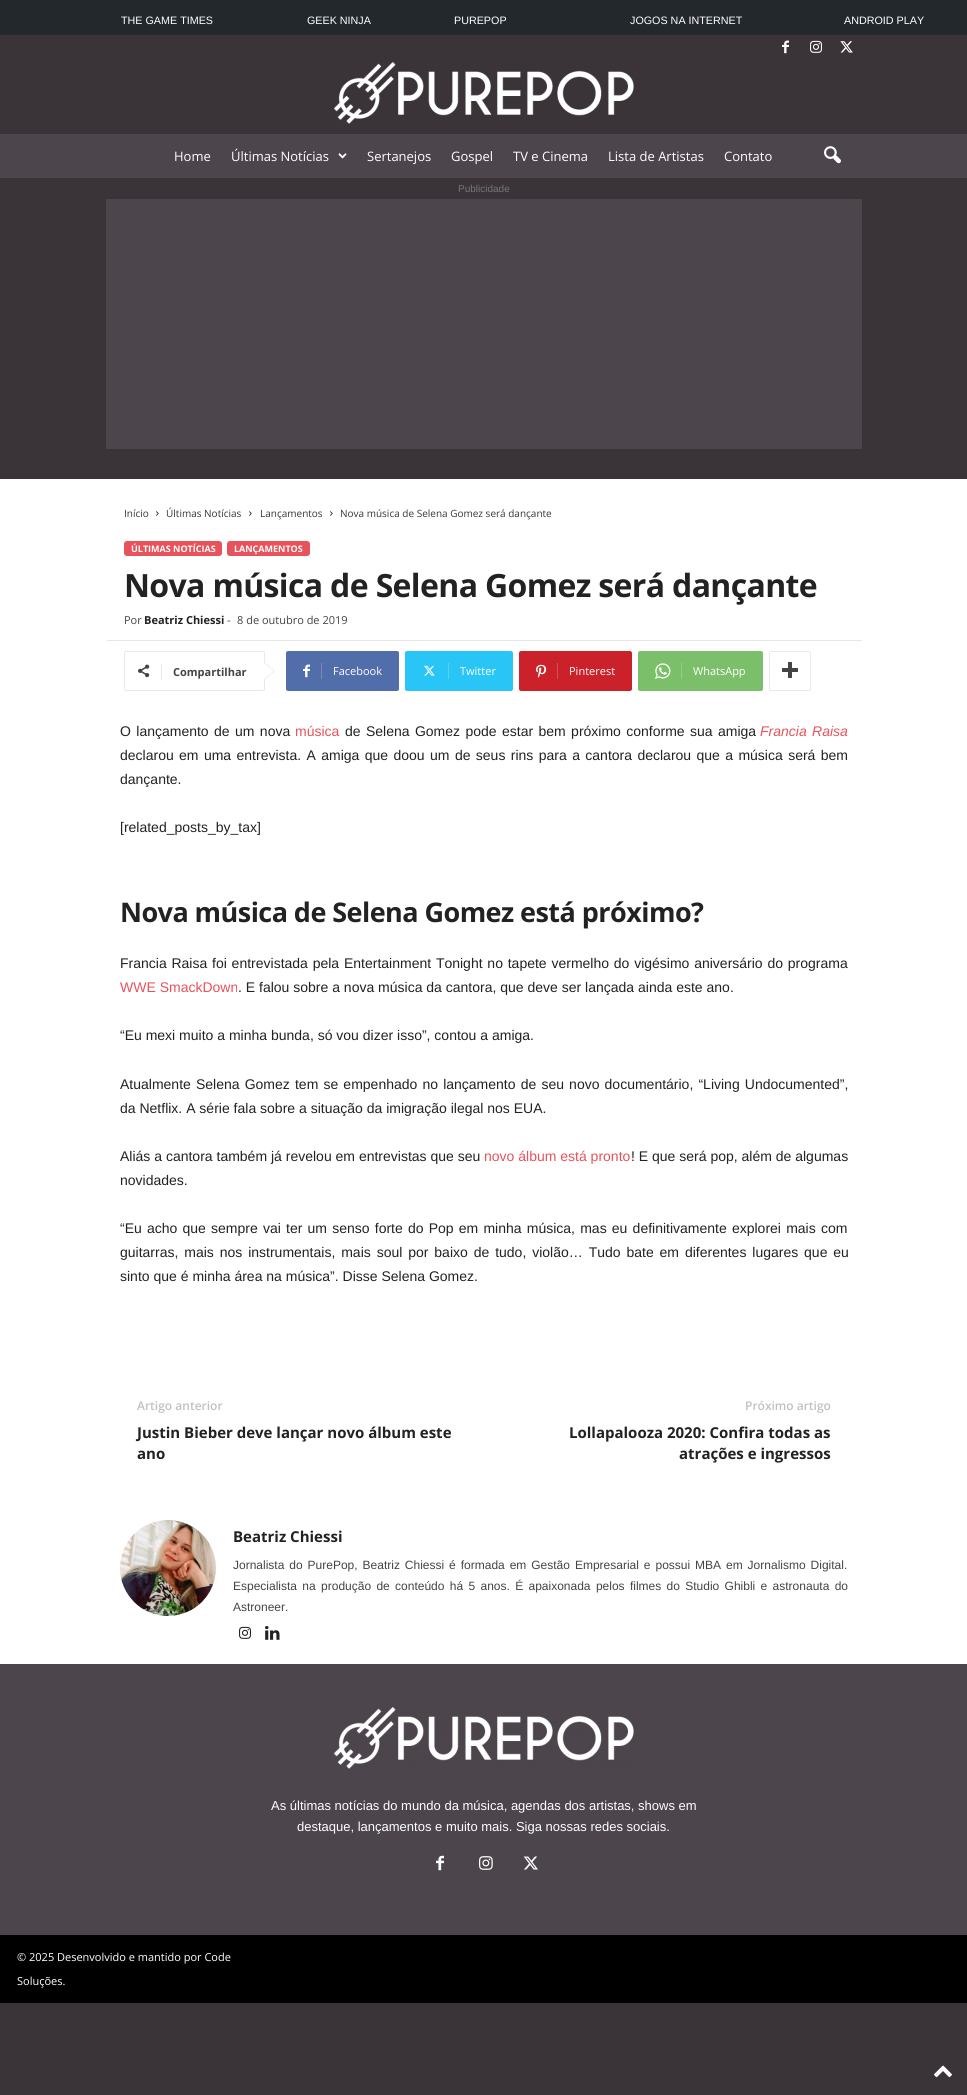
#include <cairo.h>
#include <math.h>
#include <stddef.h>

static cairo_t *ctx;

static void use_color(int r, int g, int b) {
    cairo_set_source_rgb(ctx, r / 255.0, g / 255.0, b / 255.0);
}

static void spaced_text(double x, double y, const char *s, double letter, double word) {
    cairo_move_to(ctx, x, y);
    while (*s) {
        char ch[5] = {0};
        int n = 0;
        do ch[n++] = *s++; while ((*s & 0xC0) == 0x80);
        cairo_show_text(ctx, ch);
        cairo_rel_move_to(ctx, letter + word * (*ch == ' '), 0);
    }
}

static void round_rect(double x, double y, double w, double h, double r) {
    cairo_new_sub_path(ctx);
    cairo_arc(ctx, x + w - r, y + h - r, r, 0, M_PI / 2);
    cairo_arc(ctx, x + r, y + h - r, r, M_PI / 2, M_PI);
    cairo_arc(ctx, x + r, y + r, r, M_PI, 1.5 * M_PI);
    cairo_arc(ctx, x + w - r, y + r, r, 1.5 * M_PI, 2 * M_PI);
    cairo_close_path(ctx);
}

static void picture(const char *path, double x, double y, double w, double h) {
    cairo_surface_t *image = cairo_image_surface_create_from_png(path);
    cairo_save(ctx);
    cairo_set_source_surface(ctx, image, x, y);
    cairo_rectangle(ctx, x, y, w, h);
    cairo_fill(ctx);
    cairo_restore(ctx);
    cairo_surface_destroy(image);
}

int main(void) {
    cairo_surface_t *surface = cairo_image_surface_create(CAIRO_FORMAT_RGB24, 967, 2095);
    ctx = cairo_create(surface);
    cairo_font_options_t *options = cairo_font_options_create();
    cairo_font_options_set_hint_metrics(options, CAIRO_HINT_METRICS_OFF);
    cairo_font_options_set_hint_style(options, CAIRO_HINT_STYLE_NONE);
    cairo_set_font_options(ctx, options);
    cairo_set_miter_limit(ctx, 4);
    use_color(58, 52, 57);
    cairo_paint(ctx);
    use_color(35, 40, 45);
    cairo_rectangle(ctx, 0, 0, 967, 35);
    cairo_fill(ctx);
    cairo_select_font_face(ctx, "Liberation Sans", CAIRO_FONT_SLANT_NORMAL, CAIRO_FONT_WEIGHT_NORMAL);
    cairo_set_font_size(ctx, 10.75);
    use_color(255, 255, 255);
    cairo_move_to(ctx, 121, 24);
    cairo_show_text(ctx, "THE GAME TIMES");
    cairo_move_to(ctx, 307, 24);
    cairo_show_text(ctx, "GEEK NINJA");
    cairo_move_to(ctx, 454, 24);
    cairo_show_text(ctx, "PUREPOP");
    cairo_move_to(ctx, 630, 24);
    cairo_show_text(ctx, "JOGOS NA INTERNET");
    cairo_move_to(ctx, 844, 24);
    cairo_show_text(ctx, "ANDROID PLAY");
    picture("img1.png", 782, 40, 7, 14);
    picture("img2.png", 810, 40, 12, 13);
    picture("img3.png", 840, 41, 13, 12);
    picture("img4.png", 334, 62, 300, 62);
    use_color(77, 69, 76);
    cairo_rectangle(ctx, 0, 134, 967, 44);
    cairo_fill(ctx);
    cairo_select_font_face(ctx, "Open Sans", CAIRO_FONT_SLANT_NORMAL, CAIRO_FONT_WEIGHT_NORMAL);
    cairo_set_font_size(ctx, 13);
    use_color(255, 255, 255);
    cairo_move_to(ctx, 174, 161);
    cairo_show_text(ctx, "Home");
    cairo_move_to(ctx, 231, 161);
    cairo_show_text(ctx, "Últimas Notícias");
    picture("img5.png", 338, 153, 9, 6);
    cairo_move_to(ctx, 367, 161);
    cairo_show_text(ctx, "Sertanejos");
    cairo_move_to(ctx, 451, 161);
    cairo_show_text(ctx, "Gospel");
    cairo_move_to(ctx, 513, 161);
    cairo_show_text(ctx, "TV e Cinema");
    cairo_move_to(ctx, 608, 161);
    cairo_show_text(ctx, "Lista de Artistas");
    cairo_move_to(ctx, 724, 161);
    cairo_show_text(ctx, "Contato");
    picture("img6.png", 824, 146, 17, 18);
    cairo_select_font_face(ctx, "Liberation Sans", CAIRO_FONT_SLANT_NORMAL, CAIRO_FONT_WEIGHT_NORMAL);
    cairo_set_font_size(ctx, 10);
    use_color(118, 118, 118);
    cairo_move_to(ctx, 458, 192);
    cairo_show_text(ctx, "Publicidade");
    use_color(77, 69, 76);
    cairo_rectangle(ctx, 106, 199, 756, 250);
    cairo_fill(ctx);
    use_color(255, 255, 255);
    cairo_rectangle(ctx, 0, 479, 967, 1185);
    cairo_fill(ctx);
    cairo_select_font_face(ctx, "Open Sans", CAIRO_FONT_SLANT_NORMAL, CAIRO_FONT_WEIGHT_NORMAL);
    use_color(58, 52, 57);
    cairo_move_to(ctx, 124, 517);
    cairo_show_text(ctx, "Início");
    picture("img7.png", 156, 511, 3, 5);
    cairo_move_to(ctx, 166, 517);
    cairo_show_text(ctx, "Últimas Notícias");
    picture("img7.png", 249, 511, 3, 5);
    cairo_move_to(ctx, 260, 517);
    cairo_show_text(ctx, "Lançamentos");
    picture("img7.png", 330, 511, 3, 5);
    cairo_move_to(ctx, 340, 517);
    cairo_show_text(ctx, "Nova música de Selena Gomez será dançante");
    use_color(231, 82, 91);
    round_rect(124, 541, 98, 15, 3);
    cairo_fill(ctx);
    cairo_select_font_face(ctx, "Open Sans", CAIRO_FONT_SLANT_NORMAL, CAIRO_FONT_WEIGHT_BOLD);
    cairo_set_font_size(ctx, 9);
    use_color(255, 255, 255);
    cairo_move_to(ctx, 131, 552);
    cairo_show_text(ctx, "ÚLTIMAS NOTÍCIAS");
    use_color(231, 82, 91);
    round_rect(227, 541, 83, 15, 3);
    cairo_fill(ctx);
    use_color(255, 255, 255);
    cairo_move_to(ctx, 234, 552);
    cairo_show_text(ctx, "LANÇAMENTOS");
    cairo_set_font_size(ctx, 32);
    use_color(34, 34, 34);
    spaced_text(124, 597, "Nova música de Selena Gomez será dançante", -0.65, 0);
    cairo_select_font_face(ctx, "Open Sans", CAIRO_FONT_SLANT_NORMAL, CAIRO_FONT_WEIGHT_NORMAL);
    cairo_set_font_size(ctx, 11);
    use_color(68, 68, 68);
    cairo_move_to(ctx, 124, 624);
    cairo_show_text(ctx, "Por");
    cairo_select_font_face(ctx, "Open Sans", CAIRO_FONT_SLANT_NORMAL, CAIRO_FONT_WEIGHT_BOLD);
    use_color(34, 34, 34);
    cairo_move_to(ctx, 144, 624);
    cairo_show_text(ctx, "Beatriz Chiessi");
    cairo_select_font_face(ctx, "Open Sans", CAIRO_FONT_SLANT_NORMAL, CAIRO_FONT_WEIGHT_NORMAL);
    use_color(68, 68, 68);
    cairo_move_to(ctx, 227, 624);
    cairo_show_text(ctx, "-");
    cairo_move_to(ctx, 237, 624);
    cairo_show_text(ctx, "8 de outubro de 2019");
    use_color(230, 230, 230);
    cairo_rectangle(ctx, 107, 640, 755, 1);
    cairo_fill(ctx);
    round_rect(124.5, 651.5, 140, 39, 1.5);
    use_color(233, 233, 233);
    cairo_set_line_width(ctx, 1);
    cairo_stroke(ctx);
    cairo_new_path(ctx);
    cairo_move_to(ctx, 264, 680);
    cairo_line_to(ctx, 264, 662);
    cairo_line_to(ctx, 275, 671);
    cairo_close_path(ctx);
    cairo_fill(ctx);
    picture("img8.png", 138, 664, 12, 14);
    use_color(235, 235, 235);
    cairo_rectangle(ctx, 161, 664, 1, 16);
    cairo_fill(ctx);
    cairo_select_font_face(ctx, "Open Sans", CAIRO_FONT_SLANT_NORMAL, CAIRO_FONT_WEIGHT_BOLD);
    use_color(68, 68, 68);
    cairo_move_to(ctx, 173, 676);
    cairo_show_text(ctx, "Compartilhar");
    use_color(255, 255, 255);
    cairo_new_path(ctx);
    cairo_move_to(ctx, 264, 679);
    cairo_line_to(ctx, 264, 663);
    cairo_line_to(ctx, 274, 671);
    cairo_close_path(ctx);
    cairo_fill(ctx);
    use_color(81, 110, 171);
    cairo_new_path(ctx);
    cairo_move_to(ctx, 321, 651);
    cairo_line_to(ctx, 397, 651);
    cairo_curve_to(ctx, 398, 651, 399, 652, 399, 653);
    cairo_line_to(ctx, 399, 689);
    cairo_curve_to(ctx, 399, 690, 398, 691, 397, 691);
    cairo_line_to(ctx, 321, 691);
    cairo_close_path(ctx);
    cairo_fill(ctx);
    cairo_new_path(ctx);
    cairo_move_to(ctx, 288, 651);
    cairo_line_to(ctx, 327, 651);
    cairo_line_to(ctx, 327, 691);
    cairo_line_to(ctx, 288, 691);
    cairo_curve_to(ctx, 287, 691, 286, 690, 286, 689);
    cairo_line_to(ctx, 286, 653);
    cairo_curve_to(ctx, 286, 652, 287, 651, 288, 651);
    cairo_close_path(ctx);
    cairo_fill(ctx);
    picture("img9.png", 303, 664, 7, 14);
    use_color(116, 139, 188);
    cairo_rectangle(ctx, 321, 663, 1, 16);
    cairo_fill(ctx);
    cairo_select_font_face(ctx, "Open Sans", CAIRO_FONT_SLANT_NORMAL, CAIRO_FONT_WEIGHT_NORMAL);
    use_color(255, 255, 255);
    cairo_move_to(ctx, 333, 675);
    cairo_show_text(ctx, "Facebook");
    use_color(41, 197, 246);
    cairo_new_path(ctx);
    cairo_move_to(ctx, 448, 651);
    cairo_line_to(ctx, 511, 651);
    cairo_curve_to(ctx, 512, 651, 513, 652, 513, 653);
    cairo_line_to(ctx, 513, 689);
    cairo_curve_to(ctx, 513, 690, 512, 691, 511, 691);
    cairo_line_to(ctx, 448, 691);
    cairo_close_path(ctx);
    cairo_fill(ctx);
    cairo_new_path(ctx);
    cairo_move_to(ctx, 407, 651);
    cairo_line_to(ctx, 454, 651);
    cairo_line_to(ctx, 454, 691);
    cairo_line_to(ctx, 407, 691);
    cairo_curve_to(ctx, 406, 691, 405, 690, 405, 689);
    cairo_line_to(ctx, 405, 653);
    cairo_curve_to(ctx, 405, 652, 406, 651, 407, 651);
    cairo_close_path(ctx);
    cairo_fill(ctx);
    picture("img10.png", 424, 665, 11, 11);
    use_color(84, 209, 248);
    cairo_rectangle(ctx, 448, 663, 1, 16);
    cairo_fill(ctx);
    use_color(255, 255, 255);
    cairo_move_to(ctx, 460, 675);
    cairo_show_text(ctx, "Twitter");
    use_color(202, 33, 42);
    cairo_new_path(ctx);
    cairo_move_to(ctx, 557, 651);
    cairo_line_to(ctx, 630, 651);
    cairo_curve_to(ctx, 631, 651, 632, 652, 632, 653);
    cairo_line_to(ctx, 632, 689);
    cairo_curve_to(ctx, 632, 690, 631, 691, 630, 691);
    cairo_line_to(ctx, 557, 691);
    cairo_close_path(ctx);
    cairo_fill(ctx);
    cairo_new_path(ctx);
    cairo_move_to(ctx, 521, 651);
    cairo_line_to(ctx, 563, 651);
    cairo_line_to(ctx, 563, 691);
    cairo_line_to(ctx, 521, 691);
    cairo_curve_to(ctx, 520, 691, 519, 690, 519, 689);
    cairo_line_to(ctx, 519, 653);
    cairo_curve_to(ctx, 519, 652, 520, 651, 521, 651);
    cairo_close_path(ctx);
    cairo_fill(ctx);
    picture("img11.png", 536, 664, 11, 14);
    use_color(213, 77, 85);
    cairo_rectangle(ctx, 557, 663, 1, 16);
    cairo_fill(ctx);
    use_color(255, 255, 255);
    cairo_move_to(ctx, 569, 675);
    cairo_show_text(ctx, "Pinterest");
    use_color(123, 191, 106);
    cairo_new_path(ctx);
    cairo_move_to(ctx, 681, 651);
    cairo_line_to(ctx, 761, 651);
    cairo_curve_to(ctx, 762, 651, 763, 652, 763, 653);
    cairo_line_to(ctx, 763, 689);
    cairo_curve_to(ctx, 763, 690, 762, 691, 761, 691);
    cairo_line_to(ctx, 681, 691);
    cairo_close_path(ctx);
    cairo_fill(ctx);
    cairo_new_path(ctx);
    cairo_move_to(ctx, 640, 651);
    cairo_line_to(ctx, 687, 651);
    cairo_line_to(ctx, 687, 691);
    cairo_line_to(ctx, 640, 691);
    cairo_curve_to(ctx, 639, 691, 638, 690, 638, 689);
    cairo_line_to(ctx, 638, 653);
    cairo_curve_to(ctx, 638, 652, 639, 651, 640, 651);
    cairo_close_path(ctx);
    cairo_fill(ctx);
    picture("img12.png", 655, 663, 16, 16);
    use_color(149, 204, 136);
    cairo_rectangle(ctx, 681, 663, 1, 16);
    cairo_fill(ctx);
    use_color(255, 255, 255);
    cairo_move_to(ctx, 693, 675);
    cairo_show_text(ctx, "WhatsApp");
    round_rect(769.5, 651.5, 41, 39, 1.5);
    use_color(233, 233, 233);
    cairo_stroke(ctx);
    picture("img13.png", 782, 662, 16, 16);
    cairo_select_font_face(ctx, "Liberation Sans", CAIRO_FONT_SLANT_NORMAL, CAIRO_FONT_WEIGHT_NORMAL);
    cairo_set_font_size(ctx, 14);
    use_color(34, 34, 34);
    spaced_text(120, 736, "O lançamento de um nova", 0, 1.5);
    use_color(231, 82, 91);
    cairo_move_to(ctx, 295, 736);
    cairo_show_text(ctx, "música");
    use_color(34, 34, 34);
    spaced_text(345, 736, "de Selena Gomez pode estar bem próximo conforme sua amiga", 0, 1.5);
    cairo_select_font_face(ctx, "Liberation Sans", CAIRO_FONT_SLANT_ITALIC, CAIRO_FONT_WEIGHT_NORMAL);
    use_color(231, 82, 91);
    spaced_text(760, 736, "Francia Raisa", 0, 1.5);
    cairo_select_font_face(ctx, "Liberation Sans", CAIRO_FONT_SLANT_NORMAL, CAIRO_FONT_WEIGHT_NORMAL);
    use_color(34, 34, 34);
    spaced_text(120, 760, "declarou em uma entrevista. A amiga que doou um de seus rins para a cantora declarou que a música será bem", 0, 1.5);
    cairo_move_to(ctx, 120, 784);
    cairo_show_text(ctx, "dançante.");
    cairo_move_to(ctx, 120, 832);
    cairo_show_text(ctx, "[related_posts_by_tax]");
    cairo_select_font_face(ctx, "Open Sans", CAIRO_FONT_SLANT_NORMAL, CAIRO_FONT_WEIGHT_BOLD);
    cairo_set_font_size(ctx, 27);
    spaced_text(120, 922, "Nova música de Selena Gomez está próximo?", -0.55, 0);
    cairo_select_font_face(ctx, "Liberation Sans", CAIRO_FONT_SLANT_NORMAL, CAIRO_FONT_WEIGHT_NORMAL);
    cairo_set_font_size(ctx, 14);
    spaced_text(120, 968, "Francia Raisa foi entrevistada pela Entertainment Tonight no tapete vermelho do vigésimo aniversário do programa", 0, 0.9);
    use_color(231, 82, 91);
    cairo_move_to(ctx, 120, 992);
    cairo_show_text(ctx, "WWE SmackDown");
    use_color(34, 34, 34);
    cairo_move_to(ctx, 238, 992);
    cairo_show_text(ctx, ". E falou sobre a nova música da cantora, que deve ser lançada ainda este ano.");
    cairo_move_to(ctx, 120, 1040);
    cairo_show_text(ctx, "“Eu mexi muito a minha bunda, só vou dizer isso”, contou a amiga.");
    spaced_text(120, 1089, "Atualmente Selena Gomez tem se empenhado no lançamento de seu novo documentário, “Living Undocumented”,", 0, 1.25);
    cairo_move_to(ctx, 120, 1113);
    cairo_show_text(ctx, "da Netflix. A série fala sobre a situação da imigração ilegal nos EUA.");
    cairo_move_to(ctx, 120, 1161);
    cairo_show_text(ctx, "Aliás a cantora também já revelou em entrevistas que seu");
    use_color(231, 82, 91);
    cairo_move_to(ctx, 484, 1161);
    cairo_show_text(ctx, "novo álbum está pronto");
    use_color(34, 34, 34);
    cairo_move_to(ctx, 631, 1161);
    cairo_show_text(ctx, "! E que será pop, além de algumas");
    cairo_move_to(ctx, 120, 1185);
    cairo_show_text(ctx, "novidades.");
    spaced_text(120, 1233, "“Eu acho que sempre vai ter um senso forte do Pop em minha música, mas eu definitivamente explorei mais com", 0, 1.3);
    spaced_text(120, 1257, "guitarras, mais nos instrumentais, mais soul por baixo de tudo, violão… Tudo bate em diferentes lugares que eu", 0, 2);
    cairo_move_to(ctx, 120, 1281);
    cairo_show_text(ctx, "sinto que é minha área na música”. Disse Selena Gomez.");
    cairo_select_font_face(ctx, "Open Sans SemiBold", CAIRO_FONT_SLANT_NORMAL, CAIRO_FONT_WEIGHT_NORMAL);
    cairo_set_font_size(ctx, 12);
    use_color(193, 193, 193);
    cairo_move_to(ctx, 137, 1410);
    cairo_show_text(ctx, "Artigo anterior");
    cairo_select_font_face(ctx, "Open Sans", CAIRO_FONT_SLANT_NORMAL, CAIRO_FONT_WEIGHT_BOLD);
    cairo_set_font_size(ctx, 15);
    use_color(34, 34, 34);
    cairo_move_to(ctx, 137, 1438);
    cairo_show_text(ctx, "Justin Bieber deve lançar novo álbum este");
    cairo_move_to(ctx, 137, 1459);
    cairo_show_text(ctx, "ano");
    cairo_select_font_face(ctx, "Open Sans SemiBold", CAIRO_FONT_SLANT_NORMAL, CAIRO_FONT_WEIGHT_NORMAL);
    cairo_set_font_size(ctx, 12);
    use_color(193, 193, 193);
    cairo_move_to(ctx, 745, 1410);
    cairo_show_text(ctx, "Próximo artigo");
    cairo_select_font_face(ctx, "Open Sans", CAIRO_FONT_SLANT_NORMAL, CAIRO_FONT_WEIGHT_BOLD);
    cairo_set_font_size(ctx, 15);
    use_color(34, 34, 34);
    cairo_move_to(ctx, 569, 1438);
    cairo_show_text(ctx, "Lollapalooza 2020: Confira todas as");
    cairo_move_to(ctx, 679, 1459);
    cairo_show_text(ctx, "atrações e ingressos");
    picture("img14.png", 120, 1520, 96, 96);
    cairo_move_to(ctx, 233, 1542);
    cairo_show_text(ctx, "Beatriz Chiessi");
    cairo_select_font_face(ctx, "Liberation Sans", CAIRO_FONT_SLANT_NORMAL, CAIRO_FONT_WEIGHT_NORMAL);
    cairo_set_font_size(ctx, 12);
    use_color(68, 68, 68);
    spaced_text(233, 1569, "Jornalista do PurePop, Beatriz Chiessi é formada em Gestão Empresarial e possui MBA em Jornalismo Digital.", 0, 1.6);
    spaced_text(233, 1590, "Especialista na produção de conteúdo há 5 anos. É apaixonada pelos filmes do Studio Ghibli e astronauta do", 0, 2);
    cairo_move_to(ctx, 233, 1611);
    cairo_show_text(ctx, "Astroneer.");
    picture("img15.png", 239, 1626, 12, 13);
    picture("img16.png", 265, 1626, 15, 14);
    use_color(77, 69, 76);
    cairo_rectangle(ctx, 0, 1664, 967, 271);
    cairo_fill(ctx);
    picture("img17.png", 334, 1707, 300, 62);
    cairo_set_font_size(ctx, 13);
    use_color(255, 255, 255);
    cairo_move_to(ctx, 271, 1810);
    cairo_show_text(ctx, "As últimas notícias do mundo da música, agendas dos artistas, shows em");
    cairo_move_to(ctx, 297, 1831);
    cairo_show_text(ctx, "destaque, lançamentos e muito mais. Siga nossas redes sociais.");
    picture("img18.png", 436, 1855, 8, 16);
    picture("img19.png", 479, 1856, 14, 14);
    picture("img20.png", 523, 1856, 15, 14);
    use_color(0, 0, 0);
    cairo_rectangle(ctx, 0, 1935, 967, 68);
    cairo_fill(ctx);
    cairo_select_font_face(ctx, "Open Sans", CAIRO_FONT_SLANT_NORMAL, CAIRO_FONT_WEIGHT_NORMAL);
    cairo_set_font_size(ctx, 11);
    use_color(255, 255, 255);
    cairo_move_to(ctx, 17, 1961);
    cairo_show_text(ctx, "© 2025 Desenvolvido e mantido por Code");
    cairo_move_to(ctx, 17, 1985);
    cairo_show_text(ctx, "Soluções.");
    picture("img21.png", 934, 2065, 18, 13);
    cairo_surface_write_to_png(surface, "result.png");
    cairo_font_options_destroy(options);
    cairo_destroy(ctx);
    cairo_surface_destroy(surface);
    return 0;
}
